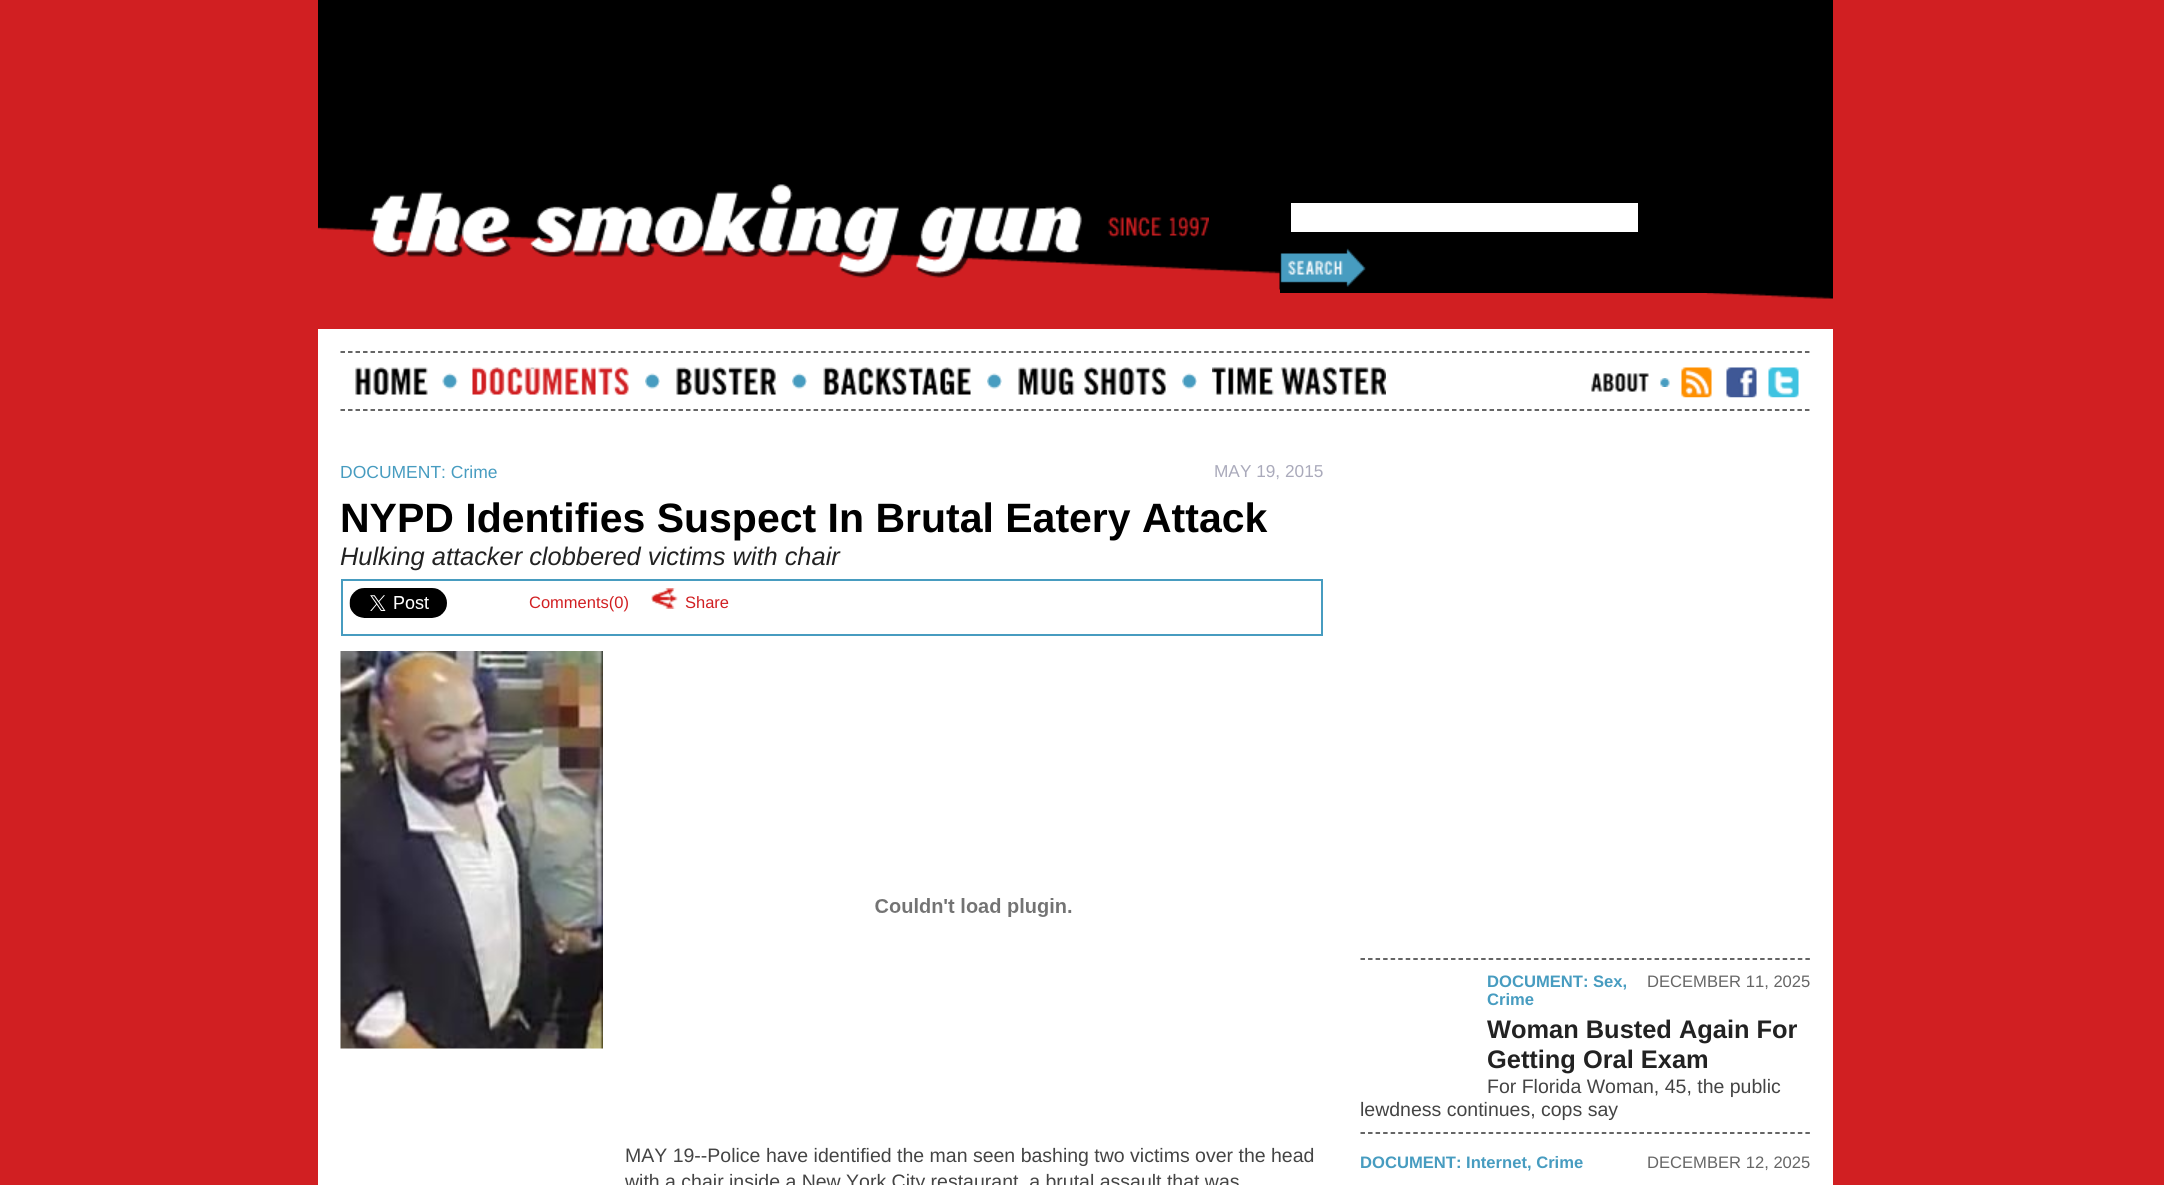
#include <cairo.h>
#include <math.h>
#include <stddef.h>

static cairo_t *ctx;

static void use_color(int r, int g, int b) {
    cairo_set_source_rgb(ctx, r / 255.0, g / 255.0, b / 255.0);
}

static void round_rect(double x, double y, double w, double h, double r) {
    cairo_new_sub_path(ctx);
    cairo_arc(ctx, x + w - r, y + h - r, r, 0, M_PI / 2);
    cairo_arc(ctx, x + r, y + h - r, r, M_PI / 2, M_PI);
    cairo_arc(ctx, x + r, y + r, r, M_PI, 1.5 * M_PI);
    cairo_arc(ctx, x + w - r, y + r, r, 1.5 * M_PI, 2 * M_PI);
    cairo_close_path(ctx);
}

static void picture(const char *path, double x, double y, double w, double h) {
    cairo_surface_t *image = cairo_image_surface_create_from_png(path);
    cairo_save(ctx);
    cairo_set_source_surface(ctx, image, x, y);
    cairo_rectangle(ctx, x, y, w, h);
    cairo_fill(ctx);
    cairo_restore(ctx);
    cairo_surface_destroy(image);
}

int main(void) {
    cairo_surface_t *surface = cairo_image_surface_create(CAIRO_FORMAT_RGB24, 2164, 1185);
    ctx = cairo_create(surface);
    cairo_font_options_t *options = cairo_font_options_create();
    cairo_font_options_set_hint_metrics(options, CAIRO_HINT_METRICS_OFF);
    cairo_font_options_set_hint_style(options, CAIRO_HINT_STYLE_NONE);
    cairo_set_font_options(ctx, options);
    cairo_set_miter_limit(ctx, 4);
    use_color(209, 31, 34);
    cairo_paint(ctx);
    use_color(0, 0, 0);
    cairo_rectangle(ctx, 318, 0, 1515, 170);
    cairo_fill(ctx);
    picture("img1.png", 318, 170, 1515, 129);
    picture("img2.png", 370, 184, 839, 94);
    cairo_rectangle(ctx, 1280, 271, 454, 22);
    cairo_fill(ctx);
    use_color(255, 255, 255);
    round_rect(1285.5, 197.5, 358, 40, 2.5);
    cairo_fill_preserve(ctx);
    use_color(0, 0, 0);
    cairo_set_line_width(ctx, 11);
    cairo_stroke(ctx);
    picture("img3.png", 1279, 248, 87, 42);
    use_color(255, 255, 255);
    cairo_rectangle(ctx, 318, 329, 1515, 856);
    cairo_fill(ctx);
    cairo_new_path(ctx);
    cairo_move_to(ctx, 340.5, 352);
    cairo_line_to(ctx, 1810.5, 352);
    use_color(51, 51, 51);
    cairo_set_line_width(ctx, 1.5);
    cairo_set_dash(ctx, (double[]){4.5, 3.01}, 2, 0);
    cairo_stroke(ctx);
    cairo_new_path(ctx);
    cairo_move_to(ctx, 340.5, 410);
    cairo_line_to(ctx, 1810.5, 410);
    cairo_stroke(ctx);
    picture("img4.png", 442, 373, 16, 16);
    picture("img5.png", 355, 367, 73, 28);
    picture("img6.png", 645, 373, 15, 16);
    picture("img7.png", 472, 367, 157, 28);
    picture("img6.png", 792, 373, 15, 16);
    picture("img8.png", 676, 367, 101, 28);
    picture("img6.png", 987, 373, 15, 16);
    picture("img9.png", 823, 367, 148, 28);
    picture("img10.png", 1182, 373, 15, 16);
    picture("img11.png", 1018, 367, 148, 28);
    picture("img12.png", 1212, 367, 174, 28);
    picture("img13.png", 1660, 378, 10, 9);
    picture("img14.png", 1591, 373, 58, 19);
    picture("img15.png", 1681, 367, 31, 31);
    picture("img16.png", 1726, 367, 31, 31);
    picture("img17.png", 1768, 367, 31, 31);
    cairo_select_font_face(ctx, "Liberation Sans", CAIRO_FONT_SLANT_NORMAL, CAIRO_FONT_WEIGHT_NORMAL);
    cairo_set_font_size(ctx, 17.5);
    use_color(71, 156, 192);
    cairo_move_to(ctx, 340, 478);
    cairo_show_text(ctx, "DOCUMENT: Crime");
    cairo_set_font_size(ctx, 17.25);
    use_color(170, 170, 187);
    cairo_move_to(ctx, 1214, 477);
    cairo_show_text(ctx, "MAY 19, 2015");
    cairo_select_font_face(ctx, "Liberation Sans", CAIRO_FONT_SLANT_NORMAL, CAIRO_FONT_WEIGHT_BOLD);
    cairo_set_font_size(ctx, 41);
    use_color(0, 0, 0);
    cairo_move_to(ctx, 340, 532);
    cairo_show_text(ctx, "NYPD Identifies Suspect In Brutal Eatery Attack");
    cairo_select_font_face(ctx, "Liberation Sans", CAIRO_FONT_SLANT_ITALIC, CAIRO_FONT_WEIGHT_NORMAL);
    cairo_set_font_size(ctx, 25.4);
    use_color(34, 34, 34);
    cairo_move_to(ctx, 340, 565);
    cairo_show_text(ctx, "Hulking attacker clobbered victims with chair");
    cairo_rectangle(ctx, 342, 580, 980, 55);
    use_color(71, 156, 192);
    cairo_set_line_width(ctx, 2);
    cairo_set_dash(ctx, NULL, 0, 0);
    cairo_stroke(ctx);
    picture("img18.png", 349, 588, 98, 30);
    cairo_select_font_face(ctx, "Liberation Sans", CAIRO_FONT_SLANT_NORMAL, CAIRO_FONT_WEIGHT_NORMAL);
    cairo_set_font_size(ctx, 16.5);
    use_color(209, 31, 34);
    cairo_move_to(ctx, 529, 608);
    cairo_show_text(ctx, "Comments(0)");
    picture("img19.png", 651, 588, 27, 21);
    cairo_move_to(ctx, 685, 608);
    cairo_show_text(ctx, "Share");
    picture("img20.png", 340, 651, 263, 398);
    picture("img21.png", 875, 898, 197, 19);
    cairo_set_font_size(ctx, 19.5);
    use_color(68, 68, 68);
    cairo_move_to(ctx, 625, 1162);
    cairo_show_text(ctx, "MAY 19--Police have identified the man seen bashing two victims over the head");
    cairo_move_to(ctx, 625, 1188);
    cairo_show_text(ctx, "with a chair inside a New York City restaurant, a brutal assault that was");
    cairo_new_path(ctx);
    cairo_move_to(ctx, 1360.5, 959);
    cairo_line_to(ctx, 1810.5, 959);
    use_color(51, 51, 51);
    cairo_set_line_width(ctx, 1.5);
    cairo_set_dash(ctx, (double[]){4.5, 3.04}, 2, 0);
    cairo_stroke(ctx);
    cairo_new_path(ctx);
    cairo_move_to(ctx, 1360.5, 1133);
    cairo_line_to(ctx, 1810.5, 1133);
    cairo_stroke(ctx);
    cairo_select_font_face(ctx, "Liberation Sans", CAIRO_FONT_SLANT_NORMAL, CAIRO_FONT_WEIGHT_BOLD);
    cairo_set_font_size(ctx, 16.6);
    use_color(71, 156, 192);
    cairo_move_to(ctx, 1487, 987);
    cairo_show_text(ctx, "DOCUMENT: Sex,");
    cairo_move_to(ctx, 1487, 1005);
    cairo_show_text(ctx, "Crime");
    cairo_select_font_face(ctx, "Liberation Sans", CAIRO_FONT_SLANT_NORMAL, CAIRO_FONT_WEIGHT_NORMAL);
    use_color(102, 102, 102);
    cairo_move_to(ctx, 1647, 987);
    cairo_show_text(ctx, "DECEMBER 11, 2025");
    cairo_select_font_face(ctx, "Liberation Sans", CAIRO_FONT_SLANT_NORMAL, CAIRO_FONT_WEIGHT_BOLD);
    cairo_set_font_size(ctx, 25.4);
    use_color(34, 34, 34);
    cairo_move_to(ctx, 1487, 1038);
    cairo_show_text(ctx, "Woman Busted Again For");
    cairo_move_to(ctx, 1487, 1068);
    cairo_show_text(ctx, "Getting Oral Exam");
    cairo_select_font_face(ctx, "Liberation Sans", CAIRO_FONT_SLANT_NORMAL, CAIRO_FONT_WEIGHT_NORMAL);
    cairo_set_font_size(ctx, 19.5);
    use_color(68, 68, 68);
    cairo_move_to(ctx, 1487, 1093);
    cairo_show_text(ctx, "For Florida Woman, 45, the public");
    cairo_move_to(ctx, 1360, 1116);
    cairo_show_text(ctx, "lewdness continues, cops say");
    cairo_select_font_face(ctx, "Liberation Sans", CAIRO_FONT_SLANT_NORMAL, CAIRO_FONT_WEIGHT_BOLD);
    cairo_set_font_size(ctx, 16.6);
    use_color(71, 156, 192);
    cairo_move_to(ctx, 1360, 1168);
    cairo_show_text(ctx, "DOCUMENT: Internet, Crime");
    cairo_select_font_face(ctx, "Liberation Sans", CAIRO_FONT_SLANT_NORMAL, CAIRO_FONT_WEIGHT_NORMAL);
    use_color(102, 102, 102);
    cairo_move_to(ctx, 1647, 1168);
    cairo_show_text(ctx, "DECEMBER 12, 2025");
    cairo_surface_write_to_png(surface, "result.png");
    cairo_font_options_destroy(options);
    cairo_destroy(ctx);
    cairo_surface_destroy(surface);
    return 0;
}
